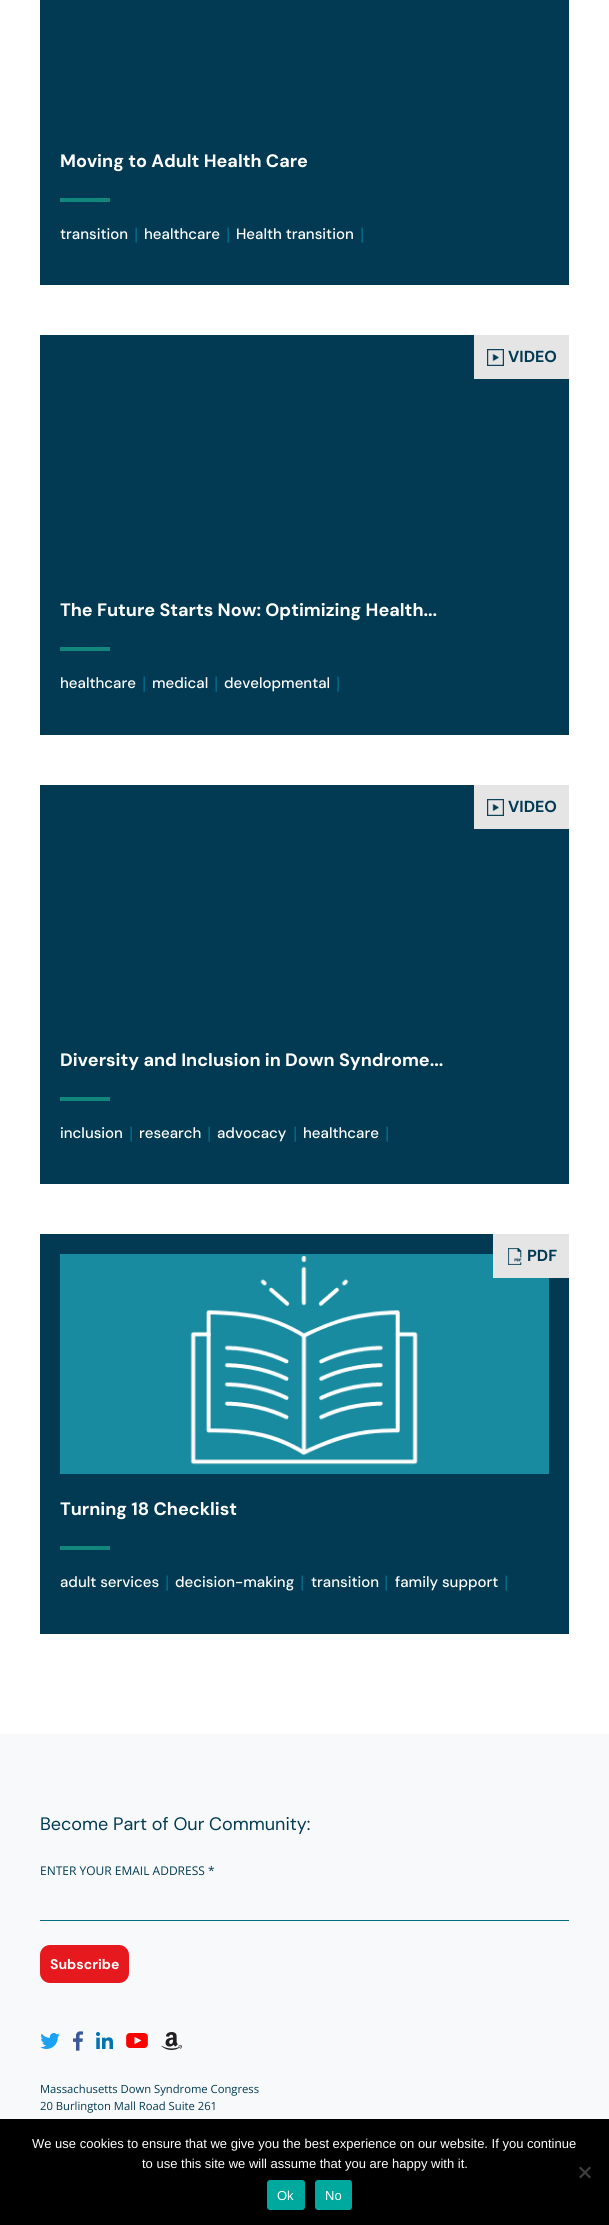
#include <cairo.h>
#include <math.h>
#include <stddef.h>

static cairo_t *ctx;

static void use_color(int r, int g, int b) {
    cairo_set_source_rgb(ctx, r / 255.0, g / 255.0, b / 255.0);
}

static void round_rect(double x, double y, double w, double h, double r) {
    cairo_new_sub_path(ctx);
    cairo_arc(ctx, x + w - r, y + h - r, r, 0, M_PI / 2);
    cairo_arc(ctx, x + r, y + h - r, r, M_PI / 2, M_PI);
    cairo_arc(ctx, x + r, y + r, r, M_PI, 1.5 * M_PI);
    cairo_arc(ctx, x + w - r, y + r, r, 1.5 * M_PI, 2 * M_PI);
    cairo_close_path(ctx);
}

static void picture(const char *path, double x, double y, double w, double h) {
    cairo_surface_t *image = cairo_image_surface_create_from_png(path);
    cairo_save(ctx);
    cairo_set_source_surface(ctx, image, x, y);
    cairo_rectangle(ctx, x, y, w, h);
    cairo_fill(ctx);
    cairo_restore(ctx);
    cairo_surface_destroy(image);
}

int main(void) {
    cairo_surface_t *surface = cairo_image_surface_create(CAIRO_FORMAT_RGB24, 609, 2225);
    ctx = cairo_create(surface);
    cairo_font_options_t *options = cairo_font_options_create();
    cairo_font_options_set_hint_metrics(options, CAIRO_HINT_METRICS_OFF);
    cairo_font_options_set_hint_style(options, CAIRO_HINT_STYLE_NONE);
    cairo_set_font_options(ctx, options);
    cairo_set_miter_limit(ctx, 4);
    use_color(255, 255, 255);
    cairo_paint(ctx);
    use_color(1, 58, 82);
    cairo_rectangle(ctx, 40, 0, 529, 285);
    cairo_fill(ctx);
    cairo_select_font_face(ctx, "DM Sans", CAIRO_FONT_SLANT_NORMAL, CAIRO_FONT_WEIGHT_BOLD);
    cairo_set_font_size(ctx, 18);
    use_color(255, 255, 255);
    cairo_move_to(ctx, 60, 167);
    cairo_show_text(ctx, "Moving to Adult Health Care");
    use_color(18, 134, 123);
    cairo_rectangle(ctx, 60, 198, 50, 4);
    cairo_fill(ctx);
    cairo_select_font_face(ctx, "DM Sans Medium", CAIRO_FONT_SLANT_NORMAL, CAIRO_FONT_WEIGHT_NORMAL);
    cairo_set_font_size(ctx, 15);
    use_color(255, 255, 255);
    cairo_move_to(ctx, 60, 239);
    cairo_show_text(ctx, "transition");
    cairo_select_font_face(ctx, "Open Sans", CAIRO_FONT_SLANT_NORMAL, CAIRO_FONT_WEIGHT_NORMAL);
    use_color(0, 130, 154);
    cairo_move_to(ctx, 132, 239);
    cairo_show_text(ctx, "|");
    cairo_select_font_face(ctx, "DM Sans Medium", CAIRO_FONT_SLANT_NORMAL, CAIRO_FONT_WEIGHT_NORMAL);
    use_color(255, 255, 255);
    cairo_move_to(ctx, 144, 239);
    cairo_show_text(ctx, "healthcare");
    cairo_select_font_face(ctx, "Open Sans", CAIRO_FONT_SLANT_NORMAL, CAIRO_FONT_WEIGHT_NORMAL);
    use_color(0, 130, 154);
    cairo_move_to(ctx, 224, 239);
    cairo_show_text(ctx, "|");
    cairo_select_font_face(ctx, "DM Sans Medium", CAIRO_FONT_SLANT_NORMAL, CAIRO_FONT_WEIGHT_NORMAL);
    use_color(255, 255, 255);
    cairo_move_to(ctx, 236, 239);
    cairo_show_text(ctx, "Health transition");
    cairo_select_font_face(ctx, "Open Sans", CAIRO_FONT_SLANT_NORMAL, CAIRO_FONT_WEIGHT_NORMAL);
    use_color(0, 130, 154);
    cairo_move_to(ctx, 358, 239);
    cairo_show_text(ctx, "|");
    use_color(1, 58, 82);
    cairo_rectangle(ctx, 40, 335, 529, 400);
    cairo_fill(ctx);
    use_color(229, 229, 229);
    cairo_rectangle(ctx, 474, 335, 95, 44);
    cairo_fill(ctx);
    picture("img1.png", 487, 349, 17, 17);
    cairo_select_font_face(ctx, "DM Sans", CAIRO_FONT_SLANT_NORMAL, CAIRO_FONT_WEIGHT_BOLD);
    cairo_set_font_size(ctx, 16);
    use_color(1, 58, 82);
    cairo_move_to(ctx, 508, 362);
    cairo_show_text(ctx, "VIDEO");
    cairo_set_font_size(ctx, 18);
    use_color(255, 255, 255);
    cairo_move_to(ctx, 60, 616);
    cairo_show_text(ctx, "The Future Starts Now: Optimizing Health...");
    use_color(18, 134, 123);
    cairo_rectangle(ctx, 60, 647, 50, 4);
    cairo_fill(ctx);
    cairo_select_font_face(ctx, "DM Sans Medium", CAIRO_FONT_SLANT_NORMAL, CAIRO_FONT_WEIGHT_NORMAL);
    cairo_set_font_size(ctx, 15);
    use_color(255, 255, 255);
    cairo_move_to(ctx, 60, 688);
    cairo_show_text(ctx, "healthcare");
    cairo_select_font_face(ctx, "Open Sans", CAIRO_FONT_SLANT_NORMAL, CAIRO_FONT_WEIGHT_NORMAL);
    use_color(0, 130, 154);
    cairo_move_to(ctx, 140, 688);
    cairo_show_text(ctx, "|");
    cairo_select_font_face(ctx, "DM Sans Medium", CAIRO_FONT_SLANT_NORMAL, CAIRO_FONT_WEIGHT_NORMAL);
    use_color(255, 255, 255);
    cairo_move_to(ctx, 152, 688);
    cairo_show_text(ctx, "medical");
    cairo_select_font_face(ctx, "Open Sans", CAIRO_FONT_SLANT_NORMAL, CAIRO_FONT_WEIGHT_NORMAL);
    use_color(0, 130, 154);
    cairo_move_to(ctx, 212, 688);
    cairo_show_text(ctx, "|");
    cairo_select_font_face(ctx, "DM Sans Medium", CAIRO_FONT_SLANT_NORMAL, CAIRO_FONT_WEIGHT_NORMAL);
    use_color(255, 255, 255);
    cairo_move_to(ctx, 224, 688);
    cairo_show_text(ctx, "developmental");
    cairo_select_font_face(ctx, "Open Sans", CAIRO_FONT_SLANT_NORMAL, CAIRO_FONT_WEIGHT_NORMAL);
    use_color(0, 130, 154);
    cairo_move_to(ctx, 334, 688);
    cairo_show_text(ctx, "|");
    use_color(1, 58, 82);
    cairo_rectangle(ctx, 40, 785, 529, 399);
    cairo_fill(ctx);
    use_color(229, 229, 229);
    cairo_rectangle(ctx, 474, 785, 95, 44);
    cairo_fill(ctx);
    picture("img1.png", 487, 799, 17, 17);
    cairo_select_font_face(ctx, "DM Sans", CAIRO_FONT_SLANT_NORMAL, CAIRO_FONT_WEIGHT_BOLD);
    cairo_set_font_size(ctx, 16);
    use_color(1, 58, 82);
    cairo_move_to(ctx, 508, 812);
    cairo_show_text(ctx, "VIDEO");
    cairo_set_font_size(ctx, 18);
    use_color(255, 255, 255);
    cairo_move_to(ctx, 60, 1066);
    cairo_show_text(ctx, "Diversity and Inclusion in Down Syndrome...");
    use_color(18, 134, 123);
    cairo_rectangle(ctx, 60, 1097, 50, 4);
    cairo_fill(ctx);
    cairo_select_font_face(ctx, "DM Sans Medium", CAIRO_FONT_SLANT_NORMAL, CAIRO_FONT_WEIGHT_NORMAL);
    cairo_set_font_size(ctx, 15);
    use_color(255, 255, 255);
    cairo_move_to(ctx, 60, 1138);
    cairo_show_text(ctx, "inclusion");
    cairo_select_font_face(ctx, "Open Sans", CAIRO_FONT_SLANT_NORMAL, CAIRO_FONT_WEIGHT_NORMAL);
    use_color(0, 130, 154);
    cairo_move_to(ctx, 127, 1138);
    cairo_show_text(ctx, "|");
    cairo_select_font_face(ctx, "DM Sans Medium", CAIRO_FONT_SLANT_NORMAL, CAIRO_FONT_WEIGHT_NORMAL);
    use_color(255, 255, 255);
    cairo_move_to(ctx, 139, 1138);
    cairo_show_text(ctx, "research");
    cairo_select_font_face(ctx, "Open Sans", CAIRO_FONT_SLANT_NORMAL, CAIRO_FONT_WEIGHT_NORMAL);
    use_color(0, 130, 154);
    cairo_move_to(ctx, 205, 1138);
    cairo_show_text(ctx, "|");
    cairo_select_font_face(ctx, "DM Sans Medium", CAIRO_FONT_SLANT_NORMAL, CAIRO_FONT_WEIGHT_NORMAL);
    use_color(255, 255, 255);
    cairo_move_to(ctx, 217, 1138);
    cairo_show_text(ctx, "advocacy");
    cairo_select_font_face(ctx, "Open Sans", CAIRO_FONT_SLANT_NORMAL, CAIRO_FONT_WEIGHT_NORMAL);
    use_color(0, 130, 154);
    cairo_move_to(ctx, 291, 1138);
    cairo_show_text(ctx, "|");
    cairo_select_font_face(ctx, "DM Sans Medium", CAIRO_FONT_SLANT_NORMAL, CAIRO_FONT_WEIGHT_NORMAL);
    use_color(255, 255, 255);
    cairo_move_to(ctx, 303, 1138);
    cairo_show_text(ctx, "healthcare");
    cairo_select_font_face(ctx, "Open Sans", CAIRO_FONT_SLANT_NORMAL, CAIRO_FONT_WEIGHT_NORMAL);
    use_color(0, 130, 154);
    cairo_move_to(ctx, 383, 1138);
    cairo_show_text(ctx, "|");
    use_color(1, 58, 82);
    cairo_rectangle(ctx, 40, 1234, 529, 400);
    cairo_fill(ctx);
    picture("img3.png", 60, 1254, 489, 220);
    use_color(229, 229, 229);
    cairo_rectangle(ctx, 493, 1234, 76, 44);
    cairo_fill(ctx);
    picture("img2.png", 508, 1248, 14, 17);
    cairo_select_font_face(ctx, "DM Sans", CAIRO_FONT_SLANT_NORMAL, CAIRO_FONT_WEIGHT_BOLD);
    cairo_set_font_size(ctx, 16);
    use_color(1, 58, 82);
    cairo_move_to(ctx, 527, 1261);
    cairo_show_text(ctx, "PDF");
    cairo_set_font_size(ctx, 18);
    use_color(255, 255, 255);
    cairo_move_to(ctx, 60, 1515);
    cairo_show_text(ctx, "Turning 18 Checklist");
    use_color(18, 134, 123);
    cairo_rectangle(ctx, 60, 1546, 50, 4);
    cairo_fill(ctx);
    cairo_select_font_face(ctx, "DM Sans Medium", CAIRO_FONT_SLANT_NORMAL, CAIRO_FONT_WEIGHT_NORMAL);
    cairo_set_font_size(ctx, 15);
    use_color(255, 255, 255);
    cairo_move_to(ctx, 60, 1587);
    cairo_show_text(ctx, "adult services");
    cairo_select_font_face(ctx, "Open Sans", CAIRO_FONT_SLANT_NORMAL, CAIRO_FONT_WEIGHT_NORMAL);
    use_color(0, 130, 154);
    cairo_move_to(ctx, 163, 1587);
    cairo_show_text(ctx, "|");
    cairo_select_font_face(ctx, "DM Sans Medium", CAIRO_FONT_SLANT_NORMAL, CAIRO_FONT_WEIGHT_NORMAL);
    use_color(255, 255, 255);
    cairo_move_to(ctx, 175, 1587);
    cairo_show_text(ctx, "decision-making");
    cairo_select_font_face(ctx, "Open Sans", CAIRO_FONT_SLANT_NORMAL, CAIRO_FONT_WEIGHT_NORMAL);
    use_color(0, 130, 154);
    cairo_move_to(ctx, 298, 1587);
    cairo_show_text(ctx, "|");
    cairo_select_font_face(ctx, "DM Sans Medium", CAIRO_FONT_SLANT_NORMAL, CAIRO_FONT_WEIGHT_NORMAL);
    use_color(255, 255, 255);
    cairo_move_to(ctx, 311, 1587);
    cairo_show_text(ctx, "transition");
    cairo_select_font_face(ctx, "Open Sans", CAIRO_FONT_SLANT_NORMAL, CAIRO_FONT_WEIGHT_NORMAL);
    use_color(0, 130, 154);
    cairo_move_to(ctx, 382, 1587);
    cairo_show_text(ctx, "|");
    cairo_select_font_face(ctx, "DM Sans Medium", CAIRO_FONT_SLANT_NORMAL, CAIRO_FONT_WEIGHT_NORMAL);
    use_color(255, 255, 255);
    cairo_move_to(ctx, 395, 1587);
    cairo_show_text(ctx, "family support");
    cairo_select_font_face(ctx, "Open Sans", CAIRO_FONT_SLANT_NORMAL, CAIRO_FONT_WEIGHT_NORMAL);
    use_color(0, 130, 154);
    cairo_move_to(ctx, 502, 1587);
    cairo_show_text(ctx, "|");
    use_color(248, 249, 250);
    cairo_rectangle(ctx, 0, 1734, 609, 385);
    cairo_fill(ctx);
    cairo_select_font_face(ctx, "DM Sans", CAIRO_FONT_SLANT_NORMAL, CAIRO_FONT_WEIGHT_NORMAL);
    cairo_set_font_size(ctx, 18);
    use_color(1, 58, 82);
    cairo_move_to(ctx, 40, 1830);
    cairo_show_text(ctx, "Become Part of Our Community:");
    cairo_select_font_face(ctx, "Open Sans", CAIRO_FONT_SLANT_NORMAL, CAIRO_FONT_WEIGHT_NORMAL);
    cairo_set_font_size(ctx, 12);
    cairo_move_to(ctx, 40, 1875);
    cairo_show_text(ctx, "ENTER YOUR EMAIL ADDRESS *");
    use_color(3, 111, 131);
    cairo_rectangle(ctx, 40, 1920, 529, 1);
    cairo_fill(ctx);
    use_color(229, 25, 30);
    round_rect(40, 1945, 89, 38, 10);
    cairo_fill(ctx);
    cairo_select_font_face(ctx, "DM Sans", CAIRO_FONT_SLANT_NORMAL, CAIRO_FONT_WEIGHT_BOLD);
    cairo_set_font_size(ctx, 14);
    use_color(255, 255, 255);
    cairo_move_to(ctx, 50, 1969);
    cairo_show_text(ctx, "Subscribe");
    picture("img4.png", 40, 2033, 20, 16);
    picture("img5.png", 73, 2031, 10, 20);
    picture("img6.png", 96, 2032, 17, 17);
    picture("img7.png", 126, 2033, 22, 15);
    picture("img8.png", 161, 2032, 21, 18);
    cairo_select_font_face(ctx, "Open Sans", CAIRO_FONT_SLANT_NORMAL, CAIRO_FONT_WEIGHT_NORMAL);
    cairo_set_font_size(ctx, 11.25);
    use_color(1, 58, 82);
    cairo_move_to(ctx, 40, 2093);
    cairo_show_text(ctx, "Massachusetts Down Syndrome Congress");
    cairo_move_to(ctx, 40, 2110);
    cairo_show_text(ctx, "20 Burlington Mall Road Suite 261");
    use_color(0, 0, 0);
    cairo_rectangle(ctx, 0, 2119, 609, 106);
    cairo_fill(ctx);
    cairo_select_font_face(ctx, "Liberation Sans", CAIRO_FONT_SLANT_NORMAL, CAIRO_FONT_WEIGHT_NORMAL);
    cairo_set_font_size(ctx, 13);
    use_color(255, 255, 255);
    cairo_move_to(ctx, 32, 2148);
    cairo_show_text(ctx, "We use cookies to ensure that we give you the best experience on our website. If you continue");
    cairo_move_to(ctx, 142, 2168);
    cairo_show_text(ctx, "to use this site we will assume that you are happy with it.");
    use_color(64, 64, 64);
    cairo_new_path(ctx);
    cairo_move_to(ctx, 589.5, 2166.5);
    cairo_line_to(ctx, 591, 2168);
    cairo_line_to(ctx, 580.5, 2178.5);
    cairo_line_to(ctx, 579, 2177);
    cairo_close_path(ctx);
    cairo_fill(ctx);
    cairo_new_path(ctx);
    cairo_move_to(ctx, 579, 2168);
    cairo_line_to(ctx, 580.5, 2166.5);
    cairo_line_to(ctx, 591, 2177);
    cairo_line_to(ctx, 589.5, 2178.5);
    cairo_close_path(ctx);
    cairo_fill(ctx);
    use_color(0, 169, 157);
    round_rect(267, 2180, 38, 30, 3);
    cairo_fill(ctx);
    use_color(255, 255, 255);
    cairo_move_to(ctx, 277, 2200);
    cairo_show_text(ctx, "Ok");
    use_color(0, 169, 157);
    round_rect(315, 2180, 37, 30, 3);
    cairo_fill(ctx);
    use_color(255, 255, 255);
    cairo_move_to(ctx, 325, 2200);
    cairo_show_text(ctx, "No");
    cairo_surface_write_to_png(surface, "result.png");
    cairo_font_options_destroy(options);
    cairo_destroy(ctx);
    cairo_surface_destroy(surface);
    return 0;
}
